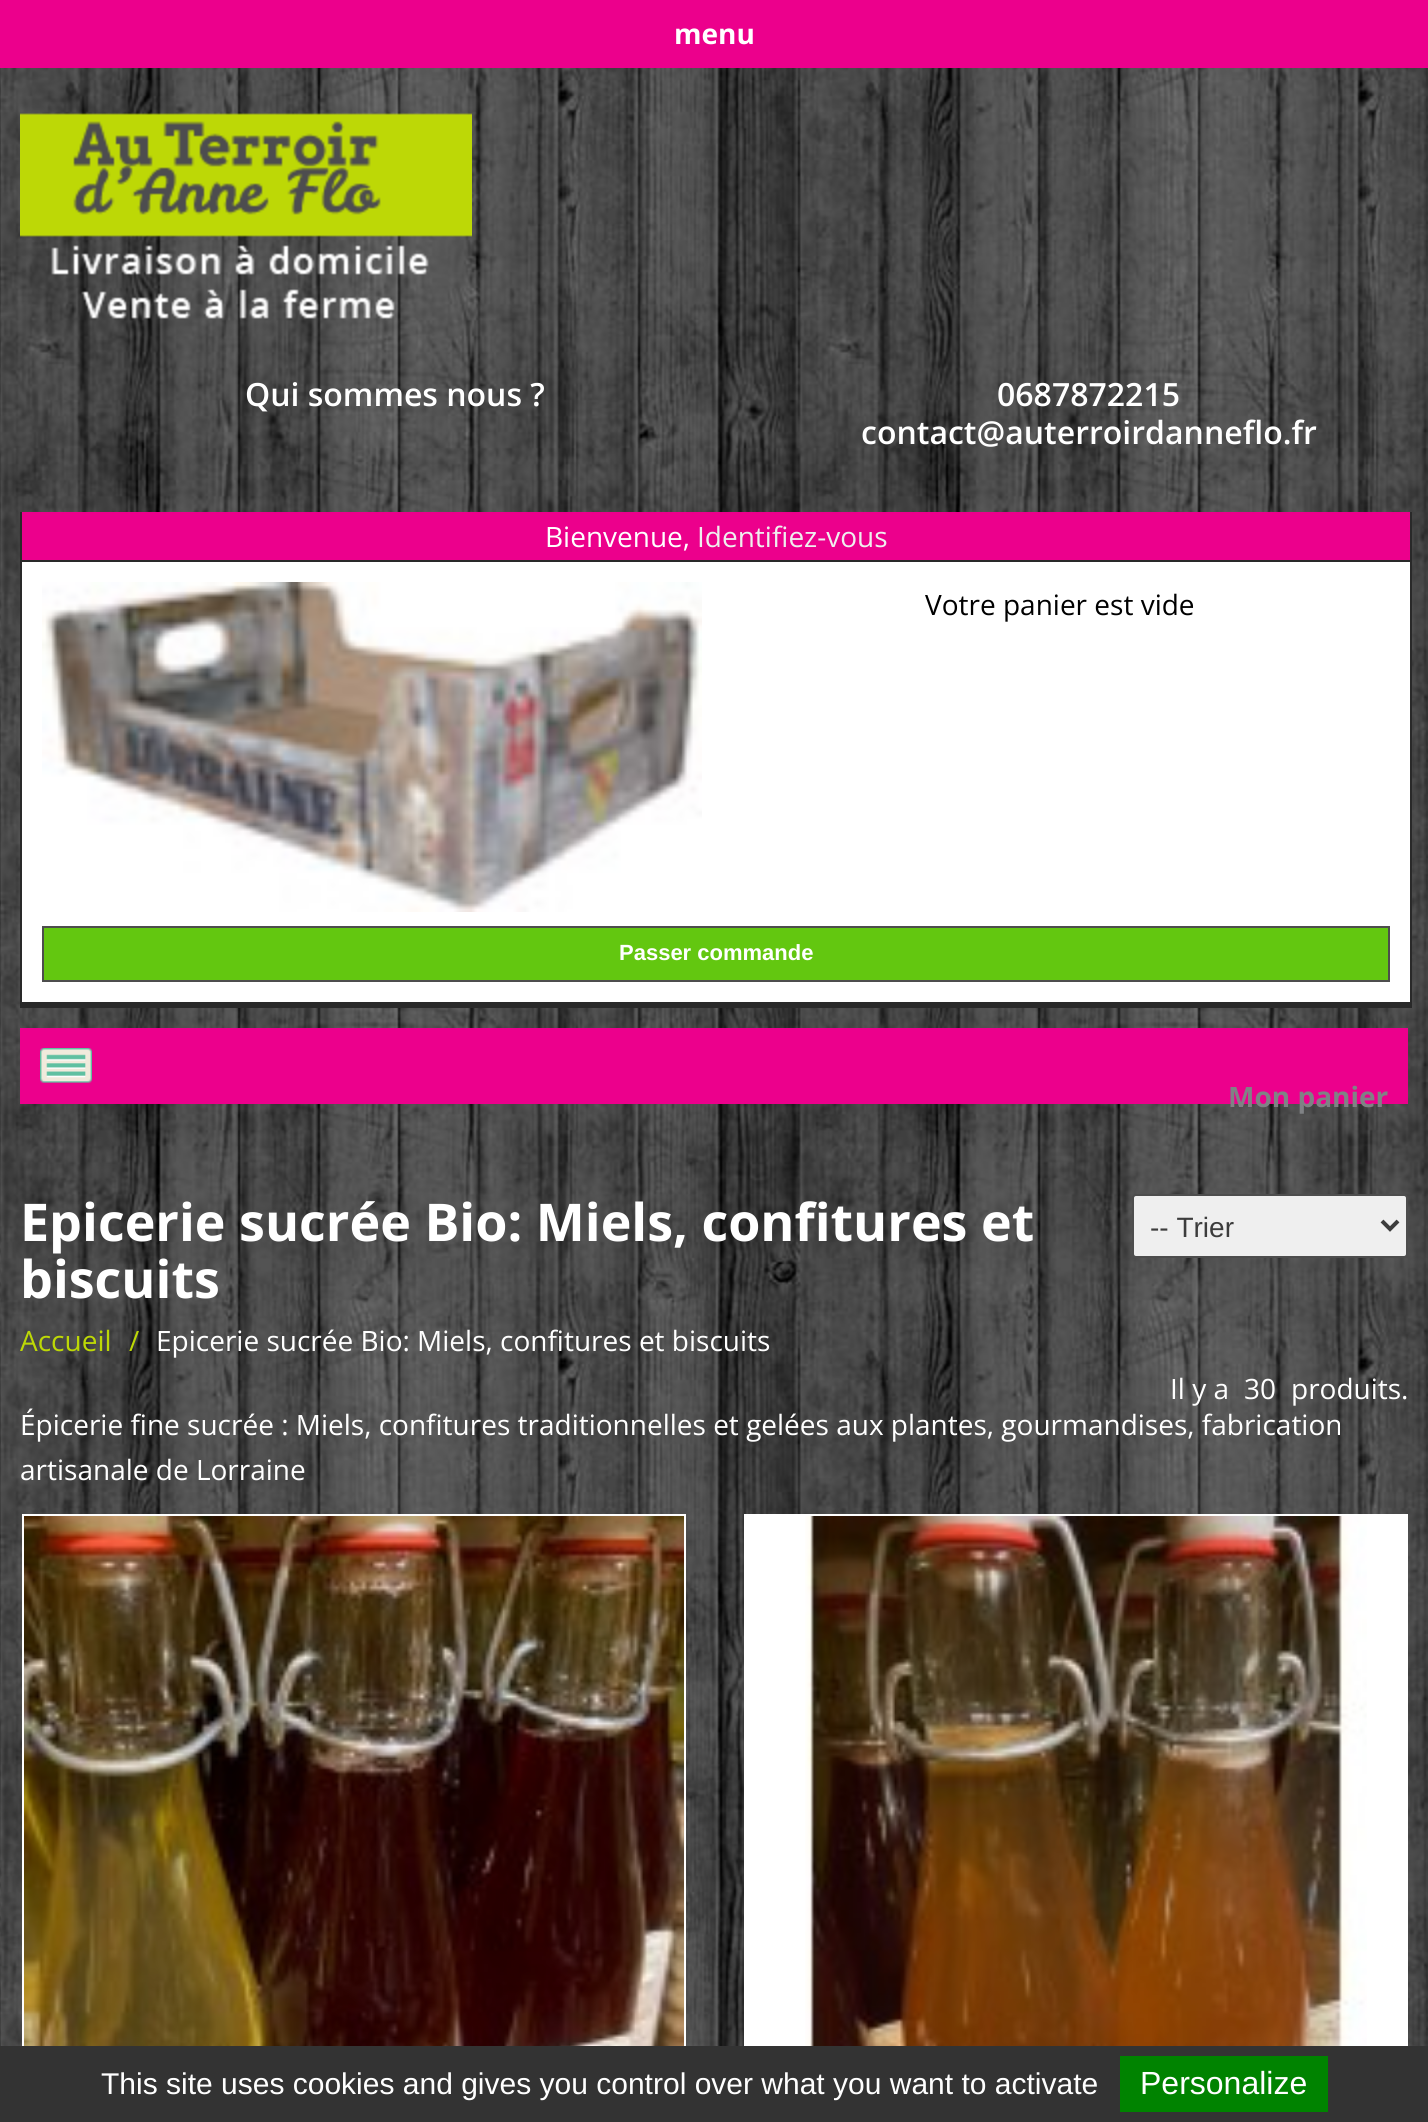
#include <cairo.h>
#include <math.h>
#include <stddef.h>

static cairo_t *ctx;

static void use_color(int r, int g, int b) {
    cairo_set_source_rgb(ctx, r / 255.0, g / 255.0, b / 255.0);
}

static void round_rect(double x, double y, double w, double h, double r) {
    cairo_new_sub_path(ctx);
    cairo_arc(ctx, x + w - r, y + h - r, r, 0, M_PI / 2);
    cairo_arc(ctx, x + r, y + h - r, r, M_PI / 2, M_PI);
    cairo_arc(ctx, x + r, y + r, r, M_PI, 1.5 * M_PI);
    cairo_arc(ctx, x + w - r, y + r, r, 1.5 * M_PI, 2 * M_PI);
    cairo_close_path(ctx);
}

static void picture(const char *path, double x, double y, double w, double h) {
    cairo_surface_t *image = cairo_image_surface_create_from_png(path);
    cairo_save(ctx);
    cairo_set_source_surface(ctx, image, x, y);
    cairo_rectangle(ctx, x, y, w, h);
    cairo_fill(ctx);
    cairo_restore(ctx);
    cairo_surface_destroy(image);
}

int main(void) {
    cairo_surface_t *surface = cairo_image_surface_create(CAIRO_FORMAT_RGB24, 1428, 2122);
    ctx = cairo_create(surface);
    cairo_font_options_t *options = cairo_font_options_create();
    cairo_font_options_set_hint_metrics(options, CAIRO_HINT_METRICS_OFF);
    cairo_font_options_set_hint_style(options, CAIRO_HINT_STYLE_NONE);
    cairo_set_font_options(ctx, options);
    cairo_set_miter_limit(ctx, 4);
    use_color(255, 255, 255);
    cairo_paint(ctx);
    picture("img1.png", 0, 68, 1428, 1978);
    use_color(236, 0, 140);
    cairo_rectangle(ctx, 0, 0, 1428, 68);
    cairo_fill(ctx);
    cairo_select_font_face(ctx, "Open Sans", CAIRO_FONT_SLANT_NORMAL, CAIRO_FONT_WEIGHT_BOLD);
    cairo_set_font_size(ctx, 28);
    use_color(255, 255, 255);
    cairo_move_to(ctx, 674, 44);
    cairo_show_text(ctx, "menu");
    picture("img2.png", 20, 113, 452, 206);
    cairo_select_font_face(ctx, "Open Sans SemiBold", CAIRO_FONT_SLANT_NORMAL, CAIRO_FONT_WEIGHT_NORMAL);
    cairo_set_font_size(ctx, 32);
    cairo_move_to(ctx, 245, 406);
    cairo_show_text(ctx, "Qui sommes nous ?");
    cairo_move_to(ctx, 997, 406);
    cairo_show_text(ctx, "0687872215");
    cairo_move_to(ctx, 861, 444);
    cairo_show_text(ctx, "contact@auterroirdanneflo.fr");
    cairo_rectangle(ctx, 22, 562, 1388, 440);
    cairo_fill(ctx);
    use_color(41, 41, 41);
    cairo_rectangle(ctx, 1410, 512, 2, 496);
    cairo_fill(ctx);
    cairo_rectangle(ctx, 20, 1004, 1392, 4);
    cairo_fill(ctx);
    cairo_rectangle(ctx, 20, 512, 2, 496);
    cairo_fill(ctx);
    use_color(236, 0, 140);
    cairo_rectangle(ctx, 22, 512, 1388, 48);
    cairo_fill(ctx);
    cairo_select_font_face(ctx, "Open Sans", CAIRO_FONT_SLANT_NORMAL, CAIRO_FONT_WEIGHT_NORMAL);
    cairo_set_font_size(ctx, 28);
    use_color(255, 255, 255);
    cairo_move_to(ctx, 545, 547);
    cairo_show_text(ctx, "Bienvenue,");
    use_color(239, 239, 239);
    cairo_move_to(ctx, 697, 547);
    cairo_show_text(ctx, "Identifiez-vous");
    use_color(41, 41, 41);
    cairo_rectangle(ctx, 22, 560, 1388, 2);
    cairo_fill(ctx);
    picture("img3.png", 42, 582, 660, 330);
    use_color(0, 0, 0);
    cairo_move_to(ctx, 925, 615);
    cairo_show_text(ctx, "Votre panier est vide");
    use_color(99, 199, 16);
    cairo_rectangle(ctx, 43, 927, 1346, 54);
    cairo_fill_preserve(ctx);
    use_color(77, 77, 77);
    cairo_stroke(ctx);
    cairo_select_font_face(ctx, "Liberation Sans", CAIRO_FONT_SLANT_NORMAL, CAIRO_FONT_WEIGHT_BOLD);
    cairo_set_font_size(ctx, 22);
    use_color(255, 255, 255);
    cairo_move_to(ctx, 619, 960);
    cairo_show_text(ctx, "Passer commande");
    use_color(41, 41, 41);
    cairo_rectangle(ctx, 22, 1002, 1388, 2);
    cairo_fill(ctx);
    use_color(236, 0, 140);
    cairo_rectangle(ctx, 20, 1028, 1388, 76);
    cairo_fill(ctx);
    picture("img4.png", 40, 1048, 52, 35);
    cairo_select_font_face(ctx, "Open Sans", CAIRO_FONT_SLANT_NORMAL, CAIRO_FONT_WEIGHT_BOLD);
    cairo_set_font_size(ctx, 28);
    use_color(128, 130, 133);
    cairo_move_to(ctx, 1228, 1107);
    cairo_show_text(ctx, "Mon panier");
    cairo_set_font_size(ctx, 52);
    use_color(255, 255, 255);
    cairo_move_to(ctx, 20, 1241);
    cairo_show_text(ctx, "Epicerie sucrée Bio: Miels, confitures et");
    cairo_move_to(ctx, 20, 1298);
    cairo_show_text(ctx, "biscuits");
    use_color(239, 239, 239);
    round_rect(1133, 1195, 274, 62, 3);
    cairo_fill_preserve(ctx);
    use_color(77, 77, 77);
    cairo_stroke(ctx);
    cairo_new_path(ctx);
    cairo_move_to(ctx, 1382, 1221);
    cairo_line_to(ctx, 1390, 1229);
    cairo_line_to(ctx, 1398, 1221);
    use_color(60, 60, 60);
    cairo_set_line_width(ctx, 4);
    cairo_stroke(ctx);
    cairo_select_font_face(ctx, "Liberation Sans", CAIRO_FONT_SLANT_NORMAL, CAIRO_FONT_WEIGHT_NORMAL);
    cairo_set_font_size(ctx, 28);
    cairo_move_to(ctx, 1150, 1237);
    cairo_show_text(ctx, "-- Trier");
    cairo_select_font_face(ctx, "Open Sans", CAIRO_FONT_SLANT_NORMAL, CAIRO_FONT_WEIGHT_NORMAL);
    use_color(189, 216, 6);
    cairo_move_to(ctx, 20, 1351);
    cairo_show_text(ctx, "Accueil");
    cairo_move_to(ctx, 129, 1351);
    cairo_show_text(ctx, "/");
    use_color(255, 255, 255);
    cairo_move_to(ctx, 156, 1351);
    cairo_show_text(ctx, "Epicerie sucrée Bio: Miels, confitures et biscuits");
    cairo_move_to(ctx, 1170, 1399);
    cairo_show_text(ctx, "Il y a");
    cairo_move_to(ctx, 1244, 1399);
    cairo_show_text(ctx, "30");
    cairo_move_to(ctx, 1291, 1399);
    cairo_show_text(ctx, "produits.");
    cairo_move_to(ctx, 20, 1435);
    cairo_show_text(ctx, "Épicerie fine sucrée : Miels, confitures traditionnelles et gelées aux plantes, gourmandises, fabrication");
    cairo_move_to(ctx, 20, 1480);
    cairo_show_text(ctx, "artisanale de Lorraine");
    cairo_rectangle(ctx, 22, 1514, 664, 532);
    cairo_fill(ctx);
    picture("img5.png", 24, 1516, 660, 530);
    cairo_rectangle(ctx, 744, 1514, 664, 532);
    cairo_fill(ctx);
    picture("img6.png", 805, 1516, 562, 530);
    use_color(51, 51, 51);
    cairo_rectangle(ctx, 0, 2046, 1428, 76);
    cairo_fill(ctx);
    cairo_select_font_face(ctx, "Liberation Sans", CAIRO_FONT_SLANT_NORMAL, CAIRO_FONT_WEIGHT_NORMAL);
    cairo_set_font_size(ctx, 30);
    use_color(255, 255, 255);
    cairo_move_to(ctx, 101, 2094);
    cairo_show_text(ctx, "This site uses cookies and gives you control over what you want to activate");
    use_color(0, 131, 0);
    cairo_rectangle(ctx, 1120, 2056, 208, 56);
    cairo_fill(ctx);
    cairo_set_font_size(ctx, 32);
    use_color(255, 255, 255);
    cairo_move_to(ctx, 1140, 2094);
    cairo_show_text(ctx, "Personalize");
    cairo_surface_write_to_png(surface, "result.png");
    cairo_font_options_destroy(options);
    cairo_destroy(ctx);
    cairo_surface_destroy(surface);
    return 0;
}
